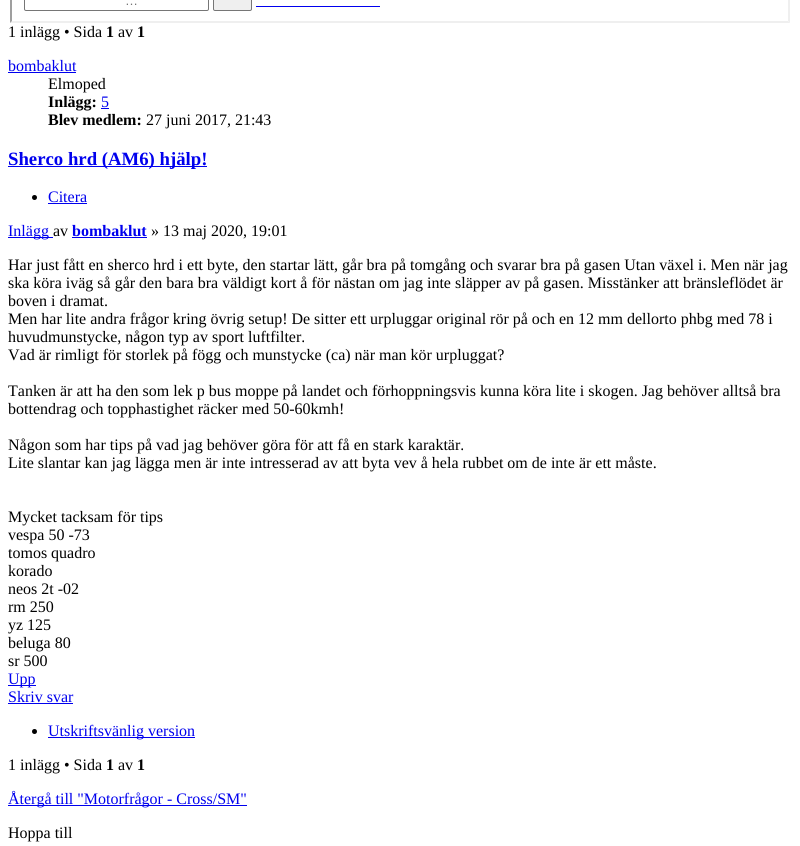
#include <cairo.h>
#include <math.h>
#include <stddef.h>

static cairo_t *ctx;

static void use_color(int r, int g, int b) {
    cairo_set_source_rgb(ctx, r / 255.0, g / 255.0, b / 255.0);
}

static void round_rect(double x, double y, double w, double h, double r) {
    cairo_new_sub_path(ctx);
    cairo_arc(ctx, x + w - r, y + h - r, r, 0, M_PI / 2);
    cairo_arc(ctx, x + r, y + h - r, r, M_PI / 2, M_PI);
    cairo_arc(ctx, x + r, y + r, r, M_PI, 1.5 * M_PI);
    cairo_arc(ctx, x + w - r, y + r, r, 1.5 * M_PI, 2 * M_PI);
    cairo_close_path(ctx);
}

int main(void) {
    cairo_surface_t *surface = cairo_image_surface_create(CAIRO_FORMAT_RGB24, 800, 846);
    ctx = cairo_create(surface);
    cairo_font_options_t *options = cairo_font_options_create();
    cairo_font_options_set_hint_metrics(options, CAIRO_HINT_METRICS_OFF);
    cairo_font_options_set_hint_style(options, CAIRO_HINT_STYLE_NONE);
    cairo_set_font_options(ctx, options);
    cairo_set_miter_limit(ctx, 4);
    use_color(255, 255, 255);
    cairo_paint(ctx);
    use_color(239, 239, 239);
    cairo_new_path(ctx);
    cairo_move_to(ctx, 790, -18);
    cairo_line_to(ctx, 790, 23);
    cairo_line_to(ctx, 788, 21);
    cairo_line_to(ctx, 788, -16);
    cairo_close_path(ctx);
    cairo_fill(ctx);
    cairo_new_path(ctx);
    cairo_move_to(ctx, 790, 23);
    cairo_line_to(ctx, 10, 23);
    cairo_line_to(ctx, 12, 21);
    cairo_line_to(ctx, 788, 21);
    cairo_close_path(ctx);
    cairo_fill(ctx);
    use_color(159, 159, 159);
    cairo_new_path(ctx);
    cairo_move_to(ctx, 10, 23);
    cairo_line_to(ctx, 10, -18);
    cairo_line_to(ctx, 12, -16);
    cairo_line_to(ctx, 12, 21);
    cairo_close_path(ctx);
    cairo_fill(ctx);
    round_rect(24.5, -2.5, 184, 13, 1.5);
    use_color(118, 118, 118);
    cairo_set_line_width(ctx, 1);
    cairo_stroke(ctx);
    cairo_select_font_face(ctx, "Liberation Sans", CAIRO_FONT_SLANT_NORMAL, CAIRO_FONT_WEIGHT_NORMAL);
    cairo_set_font_size(ctx, 13);
    use_color(117, 117, 117);
    cairo_move_to(ctx, 125, 5);
    cairo_show_text(ctx, "…");
    use_color(239, 239, 239);
    round_rect(213.5, -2.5, 38, 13, 1.5);
    cairo_fill_preserve(ctx);
    use_color(118, 118, 118);
    cairo_stroke(ctx);
    use_color(0, 0, 238);
    cairo_rectangle(ctx, 256, 6, 124, 1);
    cairo_fill(ctx);
    cairo_select_font_face(ctx, "Liberation Serif", CAIRO_FONT_SLANT_NORMAL, CAIRO_FONT_WEIGHT_NORMAL);
    cairo_set_font_size(ctx, 16);
    use_color(0, 0, 0);
    cairo_move_to(ctx, 8, 37);
    cairo_show_text(ctx, "1 inlägg • Sida");
    cairo_select_font_face(ctx, "Liberation Serif", CAIRO_FONT_SLANT_NORMAL, CAIRO_FONT_WEIGHT_BOLD);
    cairo_move_to(ctx, 106, 37);
    cairo_show_text(ctx, "1");
    cairo_select_font_face(ctx, "Liberation Serif", CAIRO_FONT_SLANT_NORMAL, CAIRO_FONT_WEIGHT_NORMAL);
    cairo_move_to(ctx, 118, 37);
    cairo_show_text(ctx, "av");
    cairo_select_font_face(ctx, "Liberation Serif", CAIRO_FONT_SLANT_NORMAL, CAIRO_FONT_WEIGHT_BOLD);
    cairo_move_to(ctx, 137, 37);
    cairo_show_text(ctx, "1");
    cairo_select_font_face(ctx, "Liberation Serif", CAIRO_FONT_SLANT_NORMAL, CAIRO_FONT_WEIGHT_NORMAL);
    use_color(0, 0, 238);
    cairo_move_to(ctx, 8, 71);
    cairo_show_text(ctx, "bombaklut");
    cairo_rectangle(ctx, 8, 72, 68, 1);
    cairo_fill(ctx);
    use_color(0, 0, 0);
    cairo_move_to(ctx, 48, 89);
    cairo_show_text(ctx, "Elmoped");
    cairo_select_font_face(ctx, "Liberation Serif", CAIRO_FONT_SLANT_NORMAL, CAIRO_FONT_WEIGHT_BOLD);
    cairo_move_to(ctx, 48, 107);
    cairo_show_text(ctx, "Inlägg:");
    cairo_select_font_face(ctx, "Liberation Serif", CAIRO_FONT_SLANT_NORMAL, CAIRO_FONT_WEIGHT_NORMAL);
    use_color(0, 0, 238);
    cairo_move_to(ctx, 101, 107);
    cairo_show_text(ctx, "5");
    cairo_rectangle(ctx, 101, 108, 8, 1);
    cairo_fill(ctx);
    cairo_select_font_face(ctx, "Liberation Serif", CAIRO_FONT_SLANT_NORMAL, CAIRO_FONT_WEIGHT_BOLD);
    use_color(0, 0, 0);
    cairo_move_to(ctx, 48, 125);
    cairo_show_text(ctx, "Blev medlem:");
    cairo_select_font_face(ctx, "Liberation Serif", CAIRO_FONT_SLANT_NORMAL, CAIRO_FONT_WEIGHT_NORMAL);
    cairo_move_to(ctx, 146, 125);
    cairo_show_text(ctx, "27 juni 2017, 21:43");
    use_color(0, 0, 238);
    cairo_rectangle(ctx, 8, 166, 199, 1);
    cairo_fill(ctx);
    cairo_select_font_face(ctx, "Liberation Serif", CAIRO_FONT_SLANT_NORMAL, CAIRO_FONT_WEIGHT_BOLD);
    cairo_set_font_size(ctx, 18.75);
    cairo_move_to(ctx, 8, 165);
    cairo_show_text(ctx, "Sherco hrd (AM6) hjälp!");
    use_color(0, 0, 0);
    cairo_new_path(ctx);
    cairo_arc(ctx, 34.5, 197.5, 2.5, 0, 2 * M_PI);
    cairo_fill(ctx);
    cairo_select_font_face(ctx, "Liberation Serif", CAIRO_FONT_SLANT_NORMAL, CAIRO_FONT_WEIGHT_NORMAL);
    cairo_set_font_size(ctx, 16);
    use_color(0, 0, 238);
    cairo_move_to(ctx, 48, 202);
    cairo_show_text(ctx, "Citera");
    cairo_rectangle(ctx, 48, 203, 39, 1);
    cairo_fill(ctx);
    cairo_rectangle(ctx, 8, 237, 45, 1);
    cairo_fill(ctx);
    cairo_move_to(ctx, 8, 236);
    cairo_show_text(ctx, "Inlägg");
    use_color(0, 0, 0);
    cairo_move_to(ctx, 53, 236);
    cairo_show_text(ctx, "av");
    use_color(0, 0, 238);
    cairo_rectangle(ctx, 72, 237, 75, 1);
    cairo_fill(ctx);
    cairo_select_font_face(ctx, "Liberation Serif", CAIRO_FONT_SLANT_NORMAL, CAIRO_FONT_WEIGHT_BOLD);
    cairo_move_to(ctx, 72, 236);
    cairo_show_text(ctx, "bombaklut");
    cairo_select_font_face(ctx, "Liberation Serif", CAIRO_FONT_SLANT_NORMAL, CAIRO_FONT_WEIGHT_NORMAL);
    use_color(0, 0, 0);
    cairo_move_to(ctx, 151, 236);
    cairo_show_text(ctx, "» 13 maj 2020, 19:01");
    cairo_move_to(ctx, 8, 270);
    cairo_show_text(ctx, "Har just fått en sherco hrd i ett byte, den startar lätt, går bra på tomgång och svarar bra på gasen Utan växel i. Men när jag");
    cairo_move_to(ctx, 8, 288);
    cairo_show_text(ctx, "ska köra iväg så går den bara bra väldigt kort å för nästan om jag inte släpper av på gasen. Misstänker att bränsleflödet är");
    cairo_move_to(ctx, 8, 306);
    cairo_show_text(ctx, "boven i dramat.");
    cairo_move_to(ctx, 8, 324);
    cairo_show_text(ctx, "Men har lite andra frågor kring övrig setup! De sitter ett urpluggar original rör på och en 12 mm dellorto phbg med 78 i");
    cairo_move_to(ctx, 8, 342);
    cairo_show_text(ctx, "huvudmunstycke, någon typ av sport luftfilter.");
    cairo_move_to(ctx, 8, 360);
    cairo_show_text(ctx, "Vad är rimligt för storlek på fögg och munstycke (ca) när man kör urpluggat?");
    cairo_move_to(ctx, 8, 396);
    cairo_show_text(ctx, "Tanken är att ha den som lek p bus moppe på landet och förhoppningsvis kunna köra lite i skogen. Jag behöver alltså bra");
    cairo_move_to(ctx, 8, 414);
    cairo_show_text(ctx, "bottendrag och topphastighet räcker med 50-60kmh!");
    cairo_move_to(ctx, 8, 450);
    cairo_show_text(ctx, "Någon som har tips på vad jag behöver göra för att få en stark karaktär.");
    cairo_move_to(ctx, 8, 468);
    cairo_show_text(ctx, "Lite slantar kan jag lägga men är inte intresserad av att byta vev å hela rubbet om de inte är ett måste.");
    cairo_move_to(ctx, 8, 522);
    cairo_show_text(ctx, "Mycket tacksam för tips");
    cairo_move_to(ctx, 8, 540);
    cairo_show_text(ctx, "vespa 50 -73");
    cairo_move_to(ctx, 8, 558);
    cairo_show_text(ctx, "tomos quadro");
    cairo_move_to(ctx, 8, 576);
    cairo_show_text(ctx, "korado");
    cairo_move_to(ctx, 8, 594);
    cairo_show_text(ctx, "neos 2t -02");
    cairo_move_to(ctx, 8, 612);
    cairo_show_text(ctx, "rm 250");
    cairo_move_to(ctx, 8, 630);
    cairo_show_text(ctx, "yz 125");
    cairo_move_to(ctx, 8, 648);
    cairo_show_text(ctx, "beluga 80");
    cairo_move_to(ctx, 8, 666);
    cairo_show_text(ctx, "sr 500");
    use_color(0, 0, 238);
    cairo_rectangle(ctx, 8, 685, 28, 1);
    cairo_fill(ctx);
    cairo_move_to(ctx, 8, 684);
    cairo_show_text(ctx, "Upp");
    cairo_move_to(ctx, 8, 702);
    cairo_show_text(ctx, "Skriv svar");
    cairo_rectangle(ctx, 8, 703, 65, 1);
    cairo_fill(ctx);
    use_color(0, 0, 0);
    cairo_arc(ctx, 34.5, 731.5, 2.5, 0, 2 * M_PI);
    cairo_fill(ctx);
    use_color(0, 0, 238);
    cairo_rectangle(ctx, 48, 737, 147, 1);
    cairo_fill(ctx);
    cairo_move_to(ctx, 48, 736);
    cairo_show_text(ctx, "Utskriftsvänlig version");
    use_color(0, 0, 0);
    cairo_move_to(ctx, 8, 770);
    cairo_show_text(ctx, "1 inlägg • Sida");
    cairo_select_font_face(ctx, "Liberation Serif", CAIRO_FONT_SLANT_NORMAL, CAIRO_FONT_WEIGHT_BOLD);
    cairo_move_to(ctx, 106, 770);
    cairo_show_text(ctx, "1");
    cairo_select_font_face(ctx, "Liberation Serif", CAIRO_FONT_SLANT_NORMAL, CAIRO_FONT_WEIGHT_NORMAL);
    cairo_move_to(ctx, 118, 770);
    cairo_show_text(ctx, "av");
    cairo_select_font_face(ctx, "Liberation Serif", CAIRO_FONT_SLANT_NORMAL, CAIRO_FONT_WEIGHT_BOLD);
    cairo_move_to(ctx, 137, 770);
    cairo_show_text(ctx, "1");
    use_color(0, 0, 238);
    cairo_rectangle(ctx, 8, 805, 239, 1);
    cairo_fill(ctx);
    cairo_select_font_face(ctx, "Liberation Serif", CAIRO_FONT_SLANT_NORMAL, CAIRO_FONT_WEIGHT_NORMAL);
    cairo_move_to(ctx, 8, 804);
    cairo_show_text(ctx, "Återgå till \"Motorfrågor - Cross/SM\"");
    use_color(0, 0, 0);
    cairo_move_to(ctx, 8, 838);
    cairo_show_text(ctx, "Hoppa till");
    cairo_surface_write_to_png(surface, "result.png");
    cairo_font_options_destroy(options);
    cairo_destroy(ctx);
    cairo_surface_destroy(surface);
    return 0;
}
